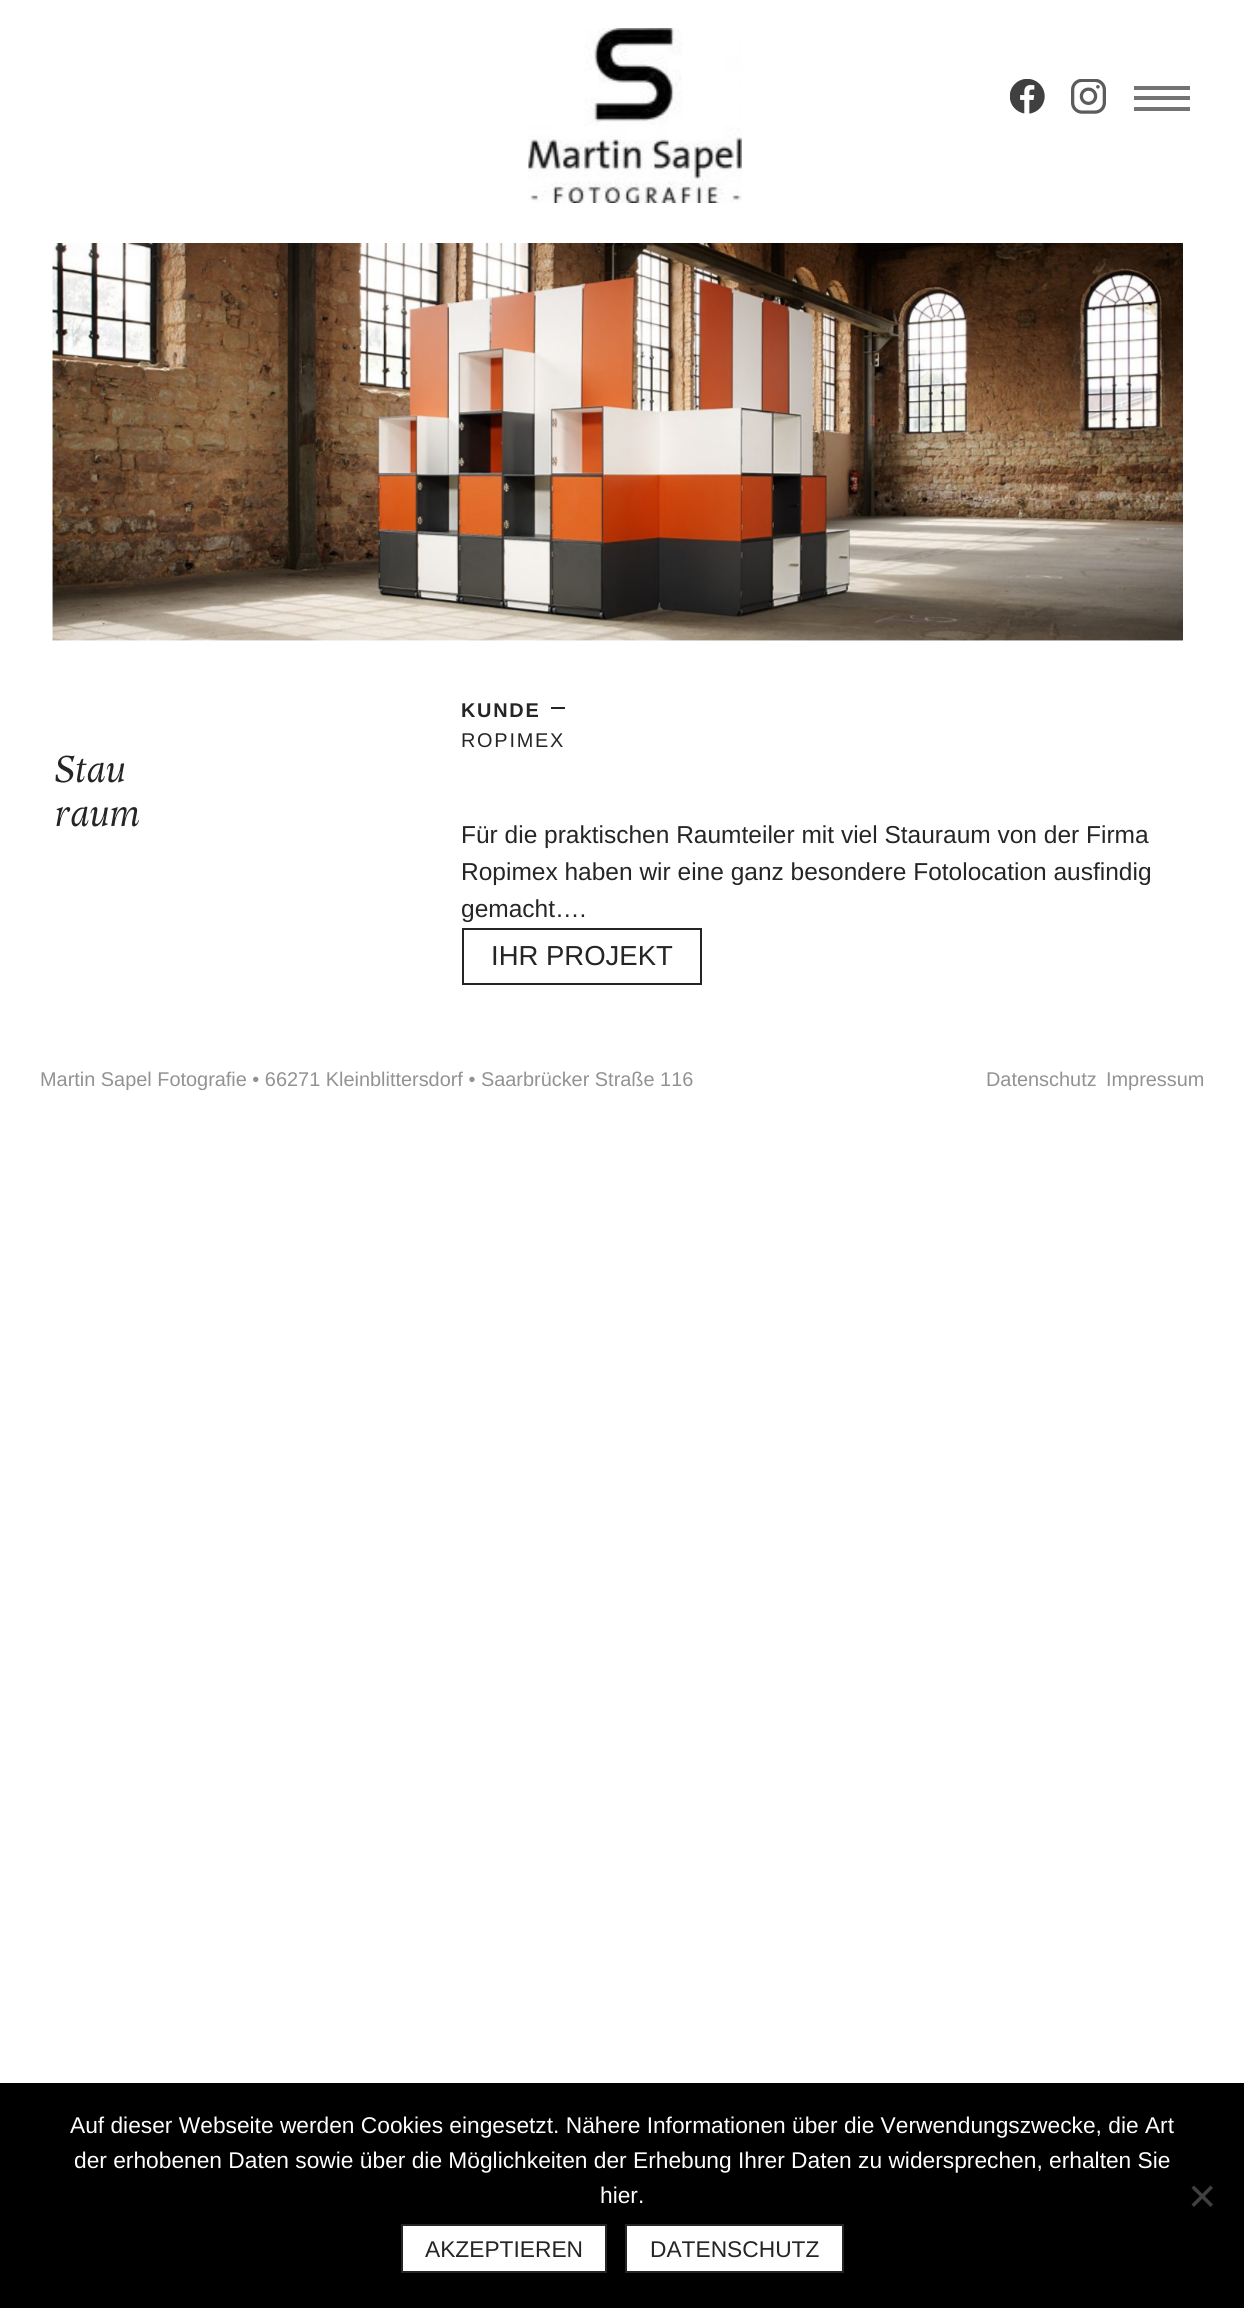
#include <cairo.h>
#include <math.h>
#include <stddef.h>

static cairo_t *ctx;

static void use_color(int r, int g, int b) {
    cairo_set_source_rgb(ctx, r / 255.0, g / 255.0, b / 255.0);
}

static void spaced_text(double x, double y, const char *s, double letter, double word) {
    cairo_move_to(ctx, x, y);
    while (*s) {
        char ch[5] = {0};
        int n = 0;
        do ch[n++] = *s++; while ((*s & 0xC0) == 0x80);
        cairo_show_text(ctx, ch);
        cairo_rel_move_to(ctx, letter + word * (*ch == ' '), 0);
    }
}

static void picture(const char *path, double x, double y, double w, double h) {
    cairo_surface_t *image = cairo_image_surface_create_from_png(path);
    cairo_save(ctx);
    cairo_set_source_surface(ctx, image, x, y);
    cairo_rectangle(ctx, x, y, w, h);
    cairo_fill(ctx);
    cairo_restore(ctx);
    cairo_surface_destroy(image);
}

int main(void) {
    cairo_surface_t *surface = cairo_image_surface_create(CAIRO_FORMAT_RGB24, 1244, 2308);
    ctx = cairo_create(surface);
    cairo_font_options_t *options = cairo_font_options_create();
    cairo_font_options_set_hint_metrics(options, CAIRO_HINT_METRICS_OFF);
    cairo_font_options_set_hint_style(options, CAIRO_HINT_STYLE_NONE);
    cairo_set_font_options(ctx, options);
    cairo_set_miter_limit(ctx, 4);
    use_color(255, 255, 255);
    cairo_paint(ctx);
    picture("img1.png", 528, 28, 214, 175);
    picture("img2.png", 1010, 79, 35, 35);
    picture("img3.png", 1071, 79, 35, 35);
    use_color(115, 115, 115);
    cairo_rectangle(ctx, 1134, 86, 56, 4);
    cairo_fill(ctx);
    cairo_rectangle(ctx, 1134, 107, 56, 4);
    cairo_fill(ctx);
    cairo_rectangle(ctx, 1134, 96, 56, 4);
    cairo_fill(ctx);
    picture("img4.png", 52, 243, 1131, 398);
    cairo_select_font_face(ctx, "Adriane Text", CAIRO_FONT_SLANT_ITALIC, CAIRO_FONT_WEIGHT_NORMAL);
    cairo_set_font_size(ctx, 37);
    use_color(37, 37, 37);
    cairo_move_to(ctx, 55, 782);
    cairo_show_text(ctx, "Stau");
    cairo_move_to(ctx, 55, 826);
    cairo_show_text(ctx, "raum");
    cairo_select_font_face(ctx, "Liberation Sans", CAIRO_FONT_SLANT_NORMAL, CAIRO_FONT_WEIGHT_BOLD);
    cairo_set_font_size(ctx, 19.9);
    spaced_text(461, 717, "KUNDE", 1.75, 0);
    cairo_select_font_face(ctx, "Liberation Sans", CAIRO_FONT_SLANT_NORMAL, CAIRO_FONT_WEIGHT_NORMAL);
    spaced_text(461, 747, "ROPIMEX", 1.75, 0);
    cairo_rectangle(ctx, 551, 707, 14, 2);
    cairo_fill(ctx);
    cairo_set_font_size(ctx, 24.5);
    cairo_move_to(ctx, 461, 843);
    cairo_show_text(ctx, "Für die praktischen Raumteiler mit viel Stauraum von der Firma");
    cairo_move_to(ctx, 461, 880);
    cairo_show_text(ctx, "Ropimex haben wir eine ganz besondere Fotolocation ausfindig");
    cairo_move_to(ctx, 461, 917);
    cairo_show_text(ctx, "gemacht….");
    cairo_rectangle(ctx, 463, 929, 238, 55);
    cairo_stroke(ctx);
    cairo_set_font_size(ctx, 27.5);
    cairo_move_to(ctx, 491, 965);
    cairo_show_text(ctx, "IHR PROJEKT");
    cairo_set_font_size(ctx, 19.9);
    use_color(146, 146, 146);
    cairo_move_to(ctx, 40, 1086);
    cairo_show_text(ctx, "Martin Sapel Fotografie • 66271 Kleinblittersdorf • Saarbrücker Straße 116");
    cairo_move_to(ctx, 986, 1086);
    cairo_show_text(ctx, "Datenschutz");
    cairo_move_to(ctx, 1106, 1086);
    cairo_show_text(ctx, "Impressum");
    use_color(0, 0, 0);
    cairo_rectangle(ctx, 0, 2083, 1244, 225);
    cairo_fill(ctx);
    cairo_set_font_size(ctx, 22.75);
    use_color(255, 255, 255);
    cairo_move_to(ctx, 70, 2133);
    cairo_show_text(ctx, "Auf dieser Webseite werden Cookies eingesetzt. Nähere Informationen über die Verwendungszwecke, die Art");
    cairo_move_to(ctx, 74, 2168);
    cairo_show_text(ctx, "der erhobenen Daten sowie über die Möglichkeiten der Erhebung Ihrer Daten zu widersprechen, erhalten Sie");
    cairo_move_to(ctx, 600, 2203);
    cairo_show_text(ctx, "hier.");
    use_color(64, 64, 64);
    cairo_new_path(ctx);
    cairo_move_to(ctx, 1210.5, 2185.5);
    cairo_line_to(ctx, 1213, 2188);
    cairo_line_to(ctx, 1194, 2207);
    cairo_line_to(ctx, 1191.5, 2204.5);
    cairo_close_path(ctx);
    cairo_fill(ctx);
    cairo_new_path(ctx);
    cairo_move_to(ctx, 1191.5, 2188);
    cairo_line_to(ctx, 1194, 2185.5);
    cairo_line_to(ctx, 1213, 2204.5);
    cairo_line_to(ctx, 1210.5, 2207);
    cairo_close_path(ctx);
    cairo_fill(ctx);
    use_color(255, 255, 255);
    cairo_rectangle(ctx, 402, 2225, 204, 47);
    cairo_fill_preserve(ctx);
    use_color(37, 37, 37);
    cairo_stroke(ctx);
    cairo_move_to(ctx, 425, 2257);
    cairo_show_text(ctx, "AKZEPTIEREN");
    use_color(255, 255, 255);
    cairo_rectangle(ctx, 626, 2225, 217, 47);
    cairo_fill_preserve(ctx);
    use_color(37, 37, 37);
    cairo_stroke(ctx);
    cairo_move_to(ctx, 650, 2257);
    cairo_show_text(ctx, "DATENSCHUTZ");
    cairo_surface_write_to_png(surface, "result.png");
    cairo_font_options_destroy(options);
    cairo_destroy(ctx);
    cairo_surface_destroy(surface);
    return 0;
}
